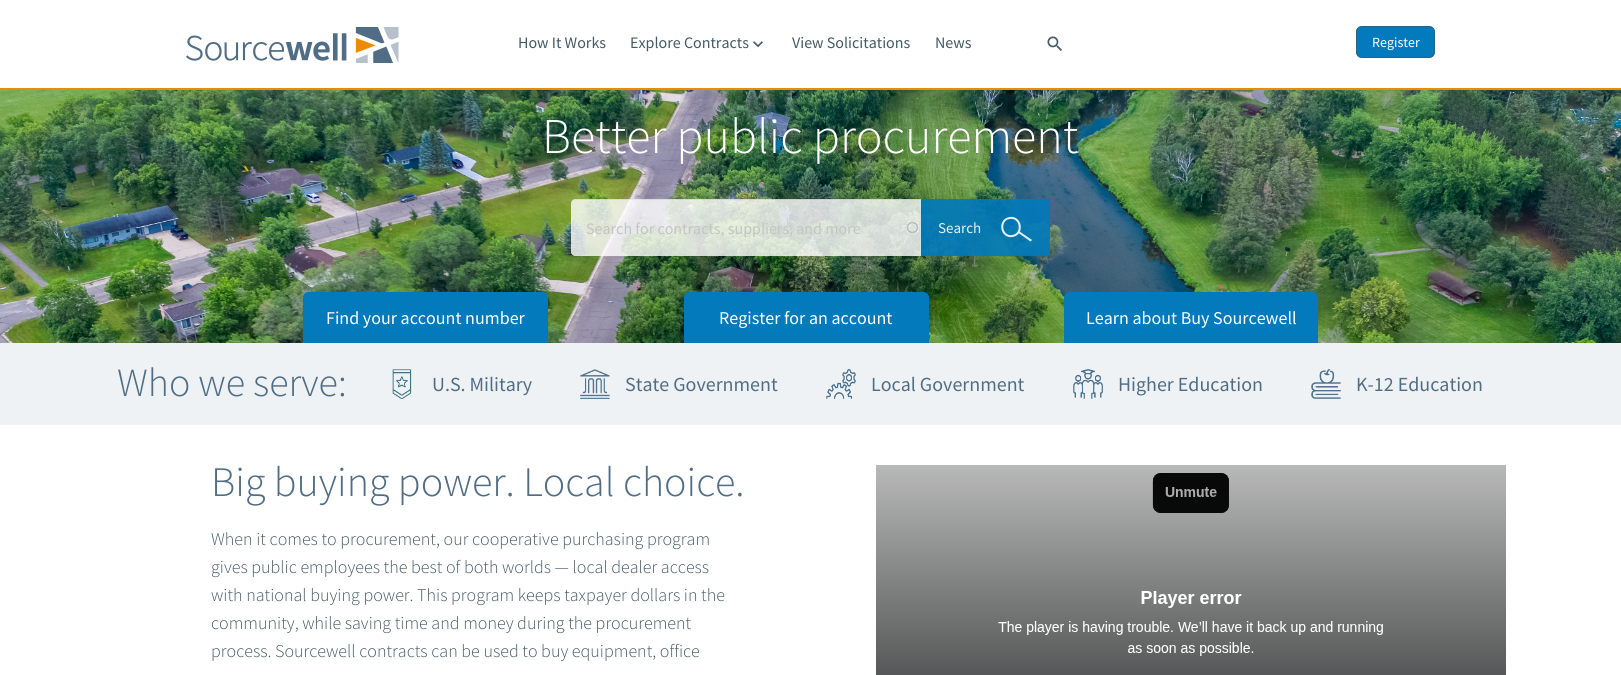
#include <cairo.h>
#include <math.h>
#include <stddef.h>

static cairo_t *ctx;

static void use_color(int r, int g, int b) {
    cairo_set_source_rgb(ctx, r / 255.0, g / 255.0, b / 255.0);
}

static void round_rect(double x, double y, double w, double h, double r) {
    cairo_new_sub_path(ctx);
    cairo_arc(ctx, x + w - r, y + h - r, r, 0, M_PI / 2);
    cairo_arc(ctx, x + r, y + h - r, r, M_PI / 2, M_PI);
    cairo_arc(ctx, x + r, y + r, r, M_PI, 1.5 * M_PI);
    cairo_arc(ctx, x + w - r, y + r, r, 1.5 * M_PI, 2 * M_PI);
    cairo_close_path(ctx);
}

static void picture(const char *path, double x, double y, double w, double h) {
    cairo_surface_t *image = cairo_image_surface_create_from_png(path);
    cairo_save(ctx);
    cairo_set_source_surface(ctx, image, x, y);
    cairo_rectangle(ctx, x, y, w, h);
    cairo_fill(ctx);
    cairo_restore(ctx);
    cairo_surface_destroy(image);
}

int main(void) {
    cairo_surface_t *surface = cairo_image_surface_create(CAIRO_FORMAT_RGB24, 1621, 675);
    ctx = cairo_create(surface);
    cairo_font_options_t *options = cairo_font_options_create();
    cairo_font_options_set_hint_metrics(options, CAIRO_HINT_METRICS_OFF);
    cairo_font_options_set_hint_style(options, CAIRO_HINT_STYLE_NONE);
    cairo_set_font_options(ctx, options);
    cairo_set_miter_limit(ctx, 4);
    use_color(255, 255, 255);
    cairo_paint(ctx);
    use_color(237, 139, 0);
    cairo_rectangle(ctx, 0, 88, 1621, 2);
    cairo_fill(ctx);
    picture("img1.png", 186, 27, 213, 36);
    cairo_select_font_face(ctx, "Source Sans Pro", CAIRO_FONT_SLANT_NORMAL, CAIRO_FONT_WEIGHT_NORMAL);
    cairo_set_font_size(ctx, 16);
    use_color(69, 90, 100);
    cairo_move_to(ctx, 518, 48);
    cairo_show_text(ctx, "How It Works");
    cairo_move_to(ctx, 630, 48);
    cairo_show_text(ctx, "Explore Contracts");
    picture("img2.png", 753, 41, 10, 7);
    cairo_move_to(ctx, 792, 48);
    cairo_show_text(ctx, "View Solicitations");
    cairo_move_to(ctx, 935, 48);
    cairo_show_text(ctx, "News");
    picture("img3.png", 1047, 36, 15, 15);
    use_color(2, 122, 187);
    round_rect(1356, 26, 79, 32, 6);
    cairo_fill(ctx);
    round_rect(1356.5, 26.5, 78, 31, 5.5);
    cairo_set_source_rgba(ctx, 0.29, 0.29, 0.29, 0.5);
    cairo_set_line_width(ctx, 1);
    cairo_stroke(ctx);
    cairo_set_font_size(ctx, 14);
    use_color(255, 255, 255);
    cairo_move_to(ctx, 1372, 47);
    cairo_show_text(ctx, "Register");
    picture("img4.png", 0, 90, 1621, 253);
    cairo_select_font_face(ctx, "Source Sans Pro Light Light", CAIRO_FONT_SLANT_NORMAL, CAIRO_FONT_WEIGHT_NORMAL);
    cairo_set_font_size(ctx, 50);
    cairo_move_to(ctx, 542, 153);
    cairo_show_text(ctx, "Better public procurement");
    cairo_set_source_rgba(ctx, 0.008, 0.478, 0.733, 0.9);
    cairo_rectangle(ctx, 920, 199, 130, 57);
    cairo_fill(ctx);
    cairo_set_source_rgba(ctx, 1, 1, 1, 0.8);
    cairo_new_path(ctx);
    cairo_move_to(ctx, 575, 199);
    cairo_line_to(ctx, 921, 199);
    cairo_line_to(ctx, 921, 256);
    cairo_line_to(ctx, 575, 256);
    cairo_curve_to(ctx, 573, 256, 571, 254, 571, 252);
    cairo_line_to(ctx, 571, 203);
    cairo_curve_to(ctx, 571, 201, 573, 199, 575, 199);
    cairo_close_path(ctx);
    cairo_fill(ctx);
    picture("img5.png", 906, 221, 13, 13);
    cairo_set_source_rgba(ctx, 0, 0, 0, 0.06);
    cairo_new_path(ctx);
    cairo_move_to(ctx, 575, 200);
    cairo_line_to(ctx, 921, 200);
    cairo_line_to(ctx, 921, 199);
    cairo_line_to(ctx, 575, 199);
    cairo_curve_to(ctx, 572, 199, 571, 201, 571, 204);
    cairo_curve_to(ctx, 571, 202, 573, 200, 575, 200);
    cairo_close_path(ctx);
    cairo_fill(ctx);
    cairo_select_font_face(ctx, "Source Sans Pro", CAIRO_FONT_SLANT_NORMAL, CAIRO_FONT_WEIGHT_NORMAL);
    cairo_set_font_size(ctx, 16);
    use_color(194, 198, 192);
    cairo_move_to(ctx, 586, 234);
    cairo_show_text(ctx, "Search for contracts, suppliers, and more");
    cairo_set_font_size(ctx, 15);
    use_color(230, 242, 247);
    cairo_move_to(ctx, 938, 233);
    cairo_show_text(ctx, "Search");
    cairo_new_path(ctx);
    cairo_move_to(ctx, 1009.5, 218);
    cairo_curve_to(ctx, 1021, 216, 1024, 234, 1012.5, 236);
    cairo_curve_to(ctx, 1001, 238, 998, 220, 1009.5, 218);
    cairo_close_path(ctx);
    cairo_set_source_rgba(ctx, 1, 1, 1, 0.9);
    cairo_set_line_width(ctx, 2);
    cairo_stroke(ctx);
    cairo_new_path(ctx);
    cairo_move_to(ctx, 1019.5, 231.5);
    cairo_line_to(ctx, 1032, 240);
    cairo_line_to(ctx, 1030.5, 241.5);
    cairo_line_to(ctx, 1018.5, 233);
    cairo_close_path(ctx);
    cairo_fill(ctx);
    use_color(2, 122, 187);
    cairo_new_path(ctx);
    cairo_move_to(ctx, 309, 292);
    cairo_line_to(ctx, 542, 292);
    cairo_curve_to(ctx, 545.5, 292, 548, 294.5, 548, 298);
    cairo_line_to(ctx, 548, 343);
    cairo_line_to(ctx, 303, 343);
    cairo_line_to(ctx, 303, 298);
    cairo_curve_to(ctx, 303, 294.5, 305.5, 292, 309, 292);
    cairo_close_path(ctx);
    cairo_fill(ctx);
    cairo_set_font_size(ctx, 18);
    use_color(255, 255, 255);
    cairo_move_to(ctx, 326, 324);
    cairo_show_text(ctx, "Find your account number");
    use_color(2, 122, 187);
    cairo_new_path(ctx);
    cairo_move_to(ctx, 690, 292);
    cairo_line_to(ctx, 923, 292);
    cairo_curve_to(ctx, 926.5, 292, 929, 294.5, 929, 298);
    cairo_line_to(ctx, 929, 343);
    cairo_line_to(ctx, 684, 343);
    cairo_line_to(ctx, 684, 298);
    cairo_curve_to(ctx, 684, 294.5, 686.5, 292, 690, 292);
    cairo_close_path(ctx);
    cairo_fill(ctx);
    use_color(255, 255, 255);
    cairo_move_to(ctx, 719, 324);
    cairo_show_text(ctx, "Register for an account");
    use_color(2, 122, 187);
    cairo_new_path(ctx);
    cairo_move_to(ctx, 1070, 292);
    cairo_line_to(ctx, 1312, 292);
    cairo_curve_to(ctx, 1315.5, 292, 1318, 294.5, 1318, 298);
    cairo_line_to(ctx, 1318, 343);
    cairo_line_to(ctx, 1064, 343);
    cairo_line_to(ctx, 1064, 298);
    cairo_curve_to(ctx, 1064, 294.5, 1066.5, 292, 1070, 292);
    cairo_close_path(ctx);
    cairo_fill(ctx);
    use_color(255, 255, 255);
    cairo_move_to(ctx, 1086, 324);
    cairo_show_text(ctx, "Learn about Buy Sourcewell");
    use_color(239, 242, 244);
    cairo_rectangle(ctx, 0, 343, 1621, 82);
    cairo_fill(ctx);
    cairo_select_font_face(ctx, "Source Sans Pro Light Light", CAIRO_FONT_SLANT_NORMAL, CAIRO_FONT_WEIGHT_NORMAL);
    cairo_set_font_size(ctx, 40);
    use_color(80, 109, 133);
    cairo_move_to(ctx, 117, 396);
    cairo_show_text(ctx, "Who we serve:");
    picture("img6.png", 392, 369, 20, 30);
    cairo_select_font_face(ctx, "Source Sans Pro", CAIRO_FONT_SLANT_NORMAL, CAIRO_FONT_WEIGHT_NORMAL);
    cairo_set_font_size(ctx, 20);
    cairo_move_to(ctx, 432, 391);
    cairo_show_text(ctx, "U.S. Military");
    picture("img7.png", 580, 369, 30, 30);
    cairo_move_to(ctx, 625, 391);
    cairo_show_text(ctx, "State Government");
    picture("img8.png", 826, 369, 30, 30);
    cairo_move_to(ctx, 871, 391);
    cairo_show_text(ctx, "Local Government");
    picture("img9.png", 1073, 369, 30, 30);
    cairo_move_to(ctx, 1118, 391);
    cairo_show_text(ctx, "Higher Education");
    picture("img10.png", 1311, 369, 30, 30);
    cairo_move_to(ctx, 1356, 391);
    cairo_show_text(ctx, "K-12 Education");
    cairo_select_font_face(ctx, "Source Sans Pro Light Light", CAIRO_FONT_SLANT_NORMAL, CAIRO_FONT_WEIGHT_NORMAL);
    cairo_set_font_size(ctx, 42);
    cairo_move_to(ctx, 211, 496);
    cairo_show_text(ctx, "Big buying power. Local choice.");
    cairo_set_font_size(ctx, 18);
    use_color(69, 90, 100);
    cairo_move_to(ctx, 211, 545);
    cairo_show_text(ctx, "When it comes to procurement, our cooperative purchasing program");
    cairo_move_to(ctx, 211, 573);
    cairo_show_text(ctx, "gives public employees the best of both worlds — local dealer access");
    cairo_move_to(ctx, 211, 601);
    cairo_show_text(ctx, "with national buying power. This program keeps taxpayer dollars in the");
    cairo_move_to(ctx, 211, 629);
    cairo_show_text(ctx, "community, while saving time and money during the procurement");
    cairo_move_to(ctx, 211, 657);
    cairo_show_text(ctx, "process. Sourcewell contracts can be used to buy equipment, office");
    picture("img11.png", 876, 465, 630, 210);
    cairo_surface_write_to_png(surface, "result.png");
    cairo_font_options_destroy(options);
    cairo_destroy(ctx);
    cairo_surface_destroy(surface);
    return 0;
}
